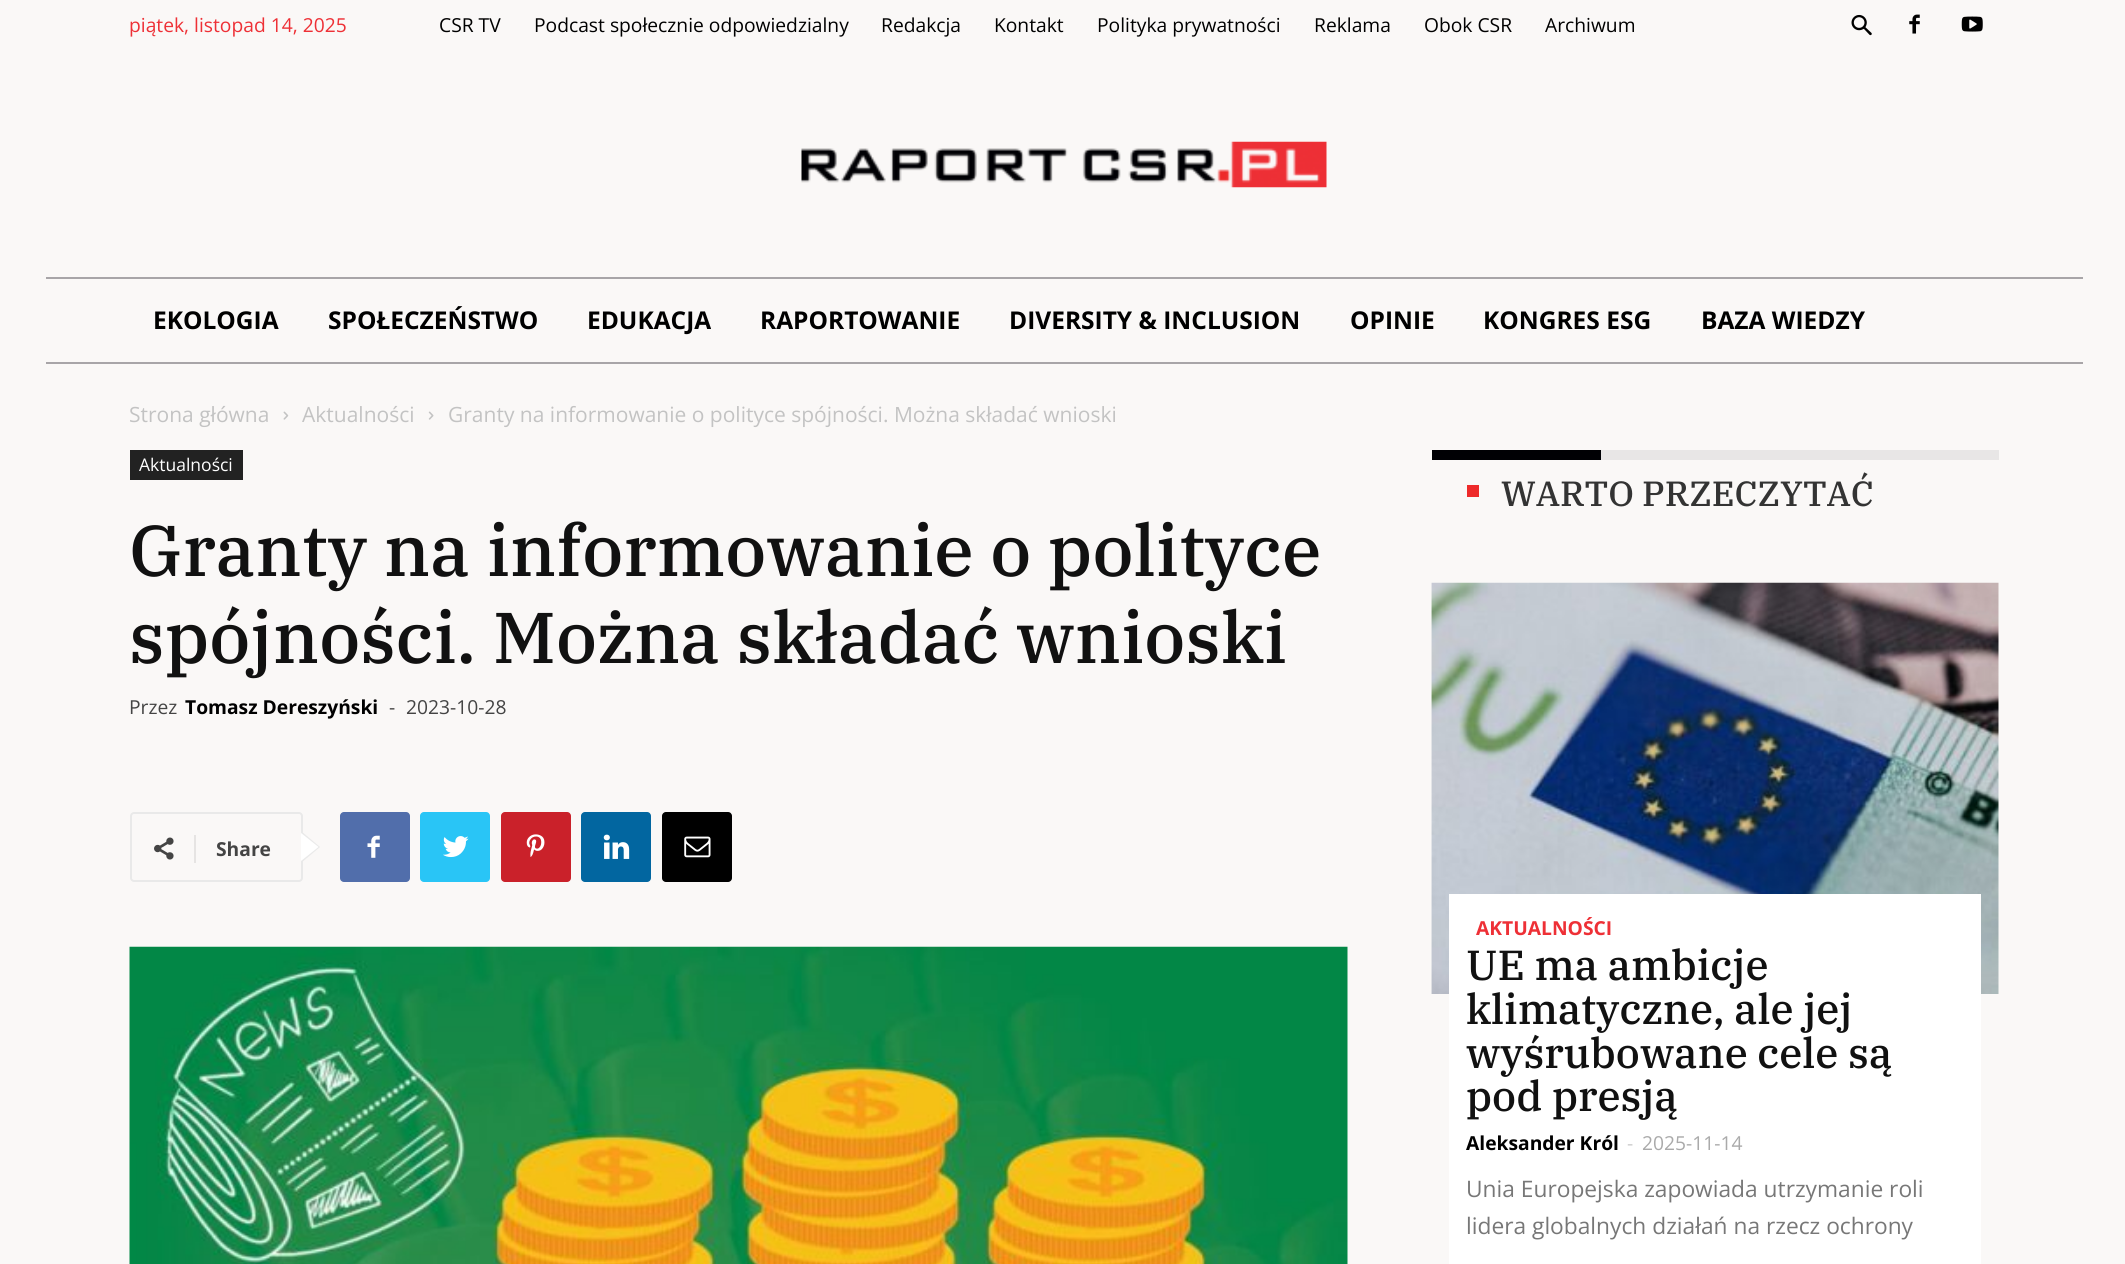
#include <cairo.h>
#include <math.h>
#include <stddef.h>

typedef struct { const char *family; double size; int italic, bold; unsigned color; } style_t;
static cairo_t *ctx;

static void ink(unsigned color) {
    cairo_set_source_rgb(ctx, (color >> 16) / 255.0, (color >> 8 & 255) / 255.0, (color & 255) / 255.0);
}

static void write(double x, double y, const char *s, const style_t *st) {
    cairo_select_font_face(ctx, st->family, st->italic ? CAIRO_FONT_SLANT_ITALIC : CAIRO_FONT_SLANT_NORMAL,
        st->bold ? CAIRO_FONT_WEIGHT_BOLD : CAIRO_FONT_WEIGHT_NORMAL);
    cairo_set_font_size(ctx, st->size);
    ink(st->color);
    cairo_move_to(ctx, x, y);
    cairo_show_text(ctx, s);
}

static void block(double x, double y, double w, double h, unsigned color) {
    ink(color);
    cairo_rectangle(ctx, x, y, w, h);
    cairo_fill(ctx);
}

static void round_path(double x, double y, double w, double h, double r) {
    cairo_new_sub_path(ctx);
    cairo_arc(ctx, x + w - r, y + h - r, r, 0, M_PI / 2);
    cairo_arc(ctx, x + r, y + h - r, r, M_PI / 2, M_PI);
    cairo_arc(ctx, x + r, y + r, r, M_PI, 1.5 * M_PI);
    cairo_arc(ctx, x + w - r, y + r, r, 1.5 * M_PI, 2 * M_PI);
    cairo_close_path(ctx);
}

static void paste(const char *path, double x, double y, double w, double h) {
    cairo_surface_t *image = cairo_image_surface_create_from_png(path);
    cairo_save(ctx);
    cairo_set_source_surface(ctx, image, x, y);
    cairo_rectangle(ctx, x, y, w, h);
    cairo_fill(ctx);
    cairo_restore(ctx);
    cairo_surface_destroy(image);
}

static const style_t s1 = {"Open Sans", 19.25, 0, 0, 0xee3036};
static const style_t s2 = {"Open Sans", 19.25, 0, 0, 0x000000};
static const style_t s3 = {"Open Sans", 24.5, 0, 1, 0x000000};
static const style_t s4 = {"Open Sans", 21, 0, 0, 0xc3c3c3};
static const style_t s5 = {"Open Sans", 17.5, 0, 0, 0xffffff};
static const style_t s6 = {"IBM Plex Serif Medium", 71.75, 0, 0, 0x111111};
static const style_t s7 = {"Open Sans", 19.25, 0, 0, 0x444444};
static const style_t s8 = {"Open Sans", 19.25, 0, 1, 0x000000};
static const style_t s9 = {"Open Sans", 19.25, 0, 1, 0x444444};
static const style_t s10 = {"IBM Plex Serif Medium", 35, 0, 0, 0x333333};
static const style_t s11 = {"Open Sans", 19.25, 0, 1, 0xee3036};
static const style_t s12 = {"IBM Plex Serif Medium", 42, 0, 0, 0x111111};
static const style_t s13 = {"Open Sans", 19.25, 0, 0, 0xcccccc};
static const style_t s14 = {"Open Sans", 19.25, 0, 0, 0xaaaaaa};
static const style_t s15 = {"Open Sans", 22.75, 0, 0, 0x777777};

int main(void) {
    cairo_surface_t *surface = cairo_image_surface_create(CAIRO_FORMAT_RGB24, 2125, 1264);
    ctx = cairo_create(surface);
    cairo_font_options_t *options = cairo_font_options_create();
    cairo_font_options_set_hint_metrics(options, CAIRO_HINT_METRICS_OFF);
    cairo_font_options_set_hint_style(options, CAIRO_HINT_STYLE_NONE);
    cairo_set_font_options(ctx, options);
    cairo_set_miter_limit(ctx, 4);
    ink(0xfaf8f7);
    cairo_paint(ctx);
    write(129, 32, "piątek, listopad 14, 2025", &s1);
    write(439, 32, "CSR TV", &s2);
    write(534, 32, "Podcast społecznie odpowiedzialny", &s2);
    write(881, 32, "Redakcja", &s2);
    write(994, 32, "Kontakt", &s2);
    write(1097, 32, "Polityka prywatności", &s2);
    write(1314, 32, "Reklama", &s2);
    write(1424, 32, "Obok CSR", &s2);
    write(1545, 32, "Archiwum", &s2);
    paste("pic1.png", 1851, 14, 21, 22);
    paste("pic2.png", 1909, 14, 11, 20);
    paste("pic3.png", 1961, 16, 22, 16);
    paste("pic4.png", 801, 141, 526, 47);
    block(46, 277, 2037, 2, 0xa8a5a8);
    block(46, 362, 2037, 2, 0xa8a5a8);
    write(153, 329, "EKOLOGIA", &s3);
    write(328, 329, "SPOŁECZEŃSTWO", &s3);
    write(587, 329, "EDUKACJA", &s3);
    write(760, 329, "RAPORTOWANIE", &s3);
    write(1009, 329, "DIVERSITY & INCLUSION", &s3);
    write(1350, 329, "OPINIE", &s3);
    write(1483, 329, "KONGRES ESG", &s3);
    write(1701, 329, "BAZA WIEDZY", &s3);
    write(129, 422, "Strona główna", &s4);
    paste("pic5.png", 283, 411, 6, 9);
    write(302, 422, "Aktualności", &s4);
    paste("pic6.png", 428, 411, 6, 9);
    write(448, 422, "Granty na informowanie o polityce spójności. Można składać wnioski", &s4);
    block(130, 450, 113, 30, 0x222222);
    write(139, 471, "Aktualności", &s5);
    write(129, 576, "Granty na informowanie o polityce", &s6);
    write(129, 663, "spójności. Można składać wnioski", &s6);
    write(129, 714, "Przez", &s7);
    write(185, 714, "Tomasz Dereszyński", &s8);
    write(389, 714, "-", &s7);
    write(406, 714, "2023-10-28", &s7);
    round_path(131, 813, 171, 68, 3);
    ink(0xe9e9e9);
    cairo_stroke(ctx);
    cairo_new_path(ctx);
    cairo_move_to(ctx, 301, 863);
    cairo_line_to(ctx, 301, 831);
    cairo_line_to(ctx, 320, 847);
    cairo_close_path(ctx);
    cairo_fill(ctx);
    paste("pic7.png", 154, 837, 20, 23);
    block(194, 835, 2, 28, 0xe6e4e3);
    write(216, 856, "Share", &s9);
    ink(0xffffff);
    cairo_new_path(ctx);
    cairo_move_to(ctx, 301, 861);
    cairo_line_to(ctx, 301, 833);
    cairo_line_to(ctx, 318.5, 847);
    cairo_close_path(ctx);
    cairo_fill(ctx);
    ink(0x516eab);
    round_path(340, 812, 70, 70, 4);
    cairo_fill(ctx);
    paste("pic8.png", 367, 835, 13, 23);
    ink(0x29c5f6);
    round_path(420, 812, 70, 70, 4);
    cairo_fill(ctx);
    paste("pic9.png", 443, 836, 26, 22);
    ink(0xca212a);
    round_path(501, 812, 70, 70, 4);
    cairo_fill(ctx);
    paste("pic10.png", 526, 834, 19, 23);
    ink(0x0266a0);
    round_path(581, 812, 70, 70, 4);
    cairo_fill(ctx);
    paste("pic11.png", 603, 834, 27, 25);
    ink(0x000000);
    round_path(662, 812, 70, 70, 4);
    cairo_fill(ctx);
    paste("pic12.png", 684, 836, 27, 22);
    paste("pic13.png", 129, 946, 1219, 318);
    block(1467, 485, 12, 12, 0xee2a2a);
    block(1432, 450, 169, 10, 0x000004);
    block(1601, 450, 398, 10, 0xe8e6e6);
    write(1501, 506, "WARTO PRZECZYTAĆ", &s10);
    paste("pic14.png", 1431, 582, 568, 412);
    block(1449, 894, 532, 370, 0xffffff);
    write(1476, 935, "AKTUALNOŚCI", &s11);
    write(1466, 980, "UE ma ambicje", &s12);
    write(1466, 1024, "klimatyczne, ale jej", &s12);
    write(1466, 1068, "wyśrubowane cele są", &s12);
    write(1466, 1111, "pod presją", &s12);
    write(1466, 1150, "Aleksander Król", &s8);
    write(1627, 1150, "-", &s13);
    write(1642, 1150, "2025-11-14", &s14);
    write(1466, 1197, "Unia Europejska zapowiada utrzymanie roli", &s15);
    write(1466, 1234, "lidera globalnych działań na rzecz ochrony", &s15);
    cairo_surface_write_to_png(surface, "screenshot.png");
    cairo_font_options_destroy(options);
    cairo_destroy(ctx);
    cairo_surface_destroy(surface);
    return 0;
}
